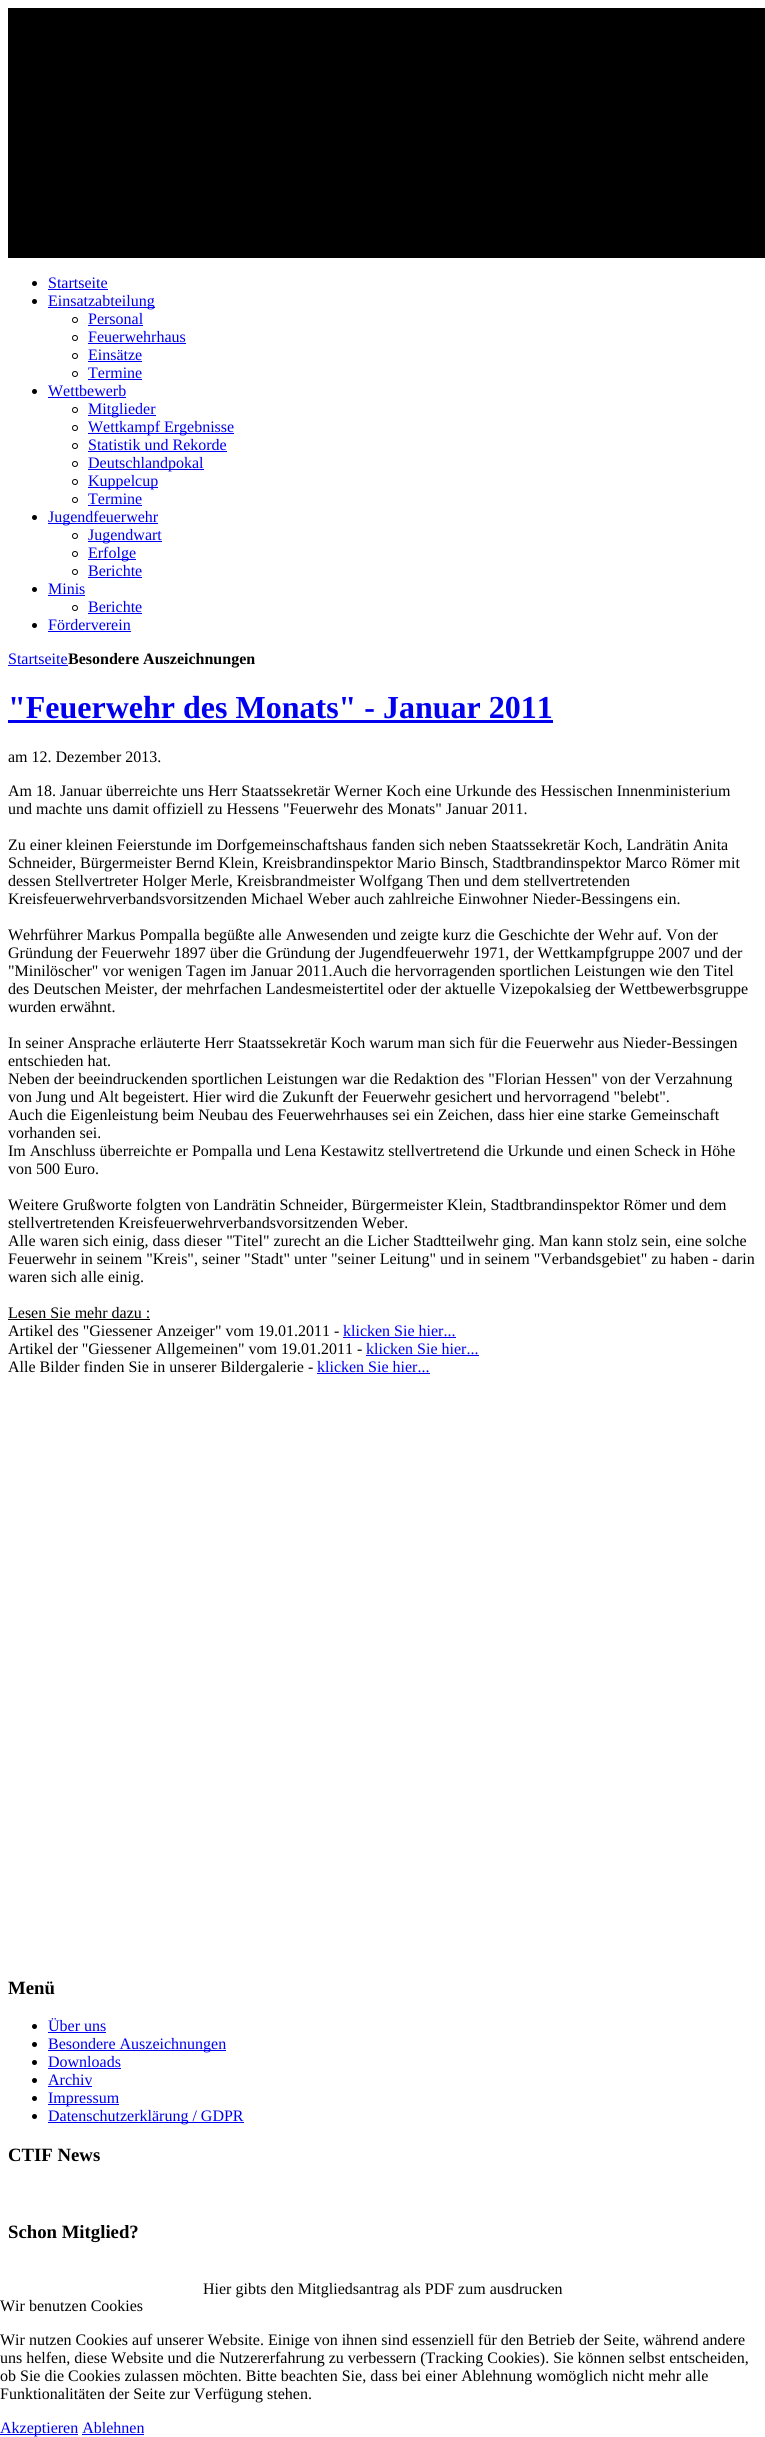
#include <cairo.h>
#include <math.h>
#include <stddef.h>

typedef struct { const char *family; double size; int italic, bold; unsigned color; } style_t;
static cairo_t *ctx;

static void ink(unsigned color) {
    cairo_set_source_rgb(ctx, (color >> 16) / 255.0, (color >> 8 & 255) / 255.0, (color & 255) / 255.0);
}

static void write(double x, double y, const char *s, const style_t *st) {
    cairo_select_font_face(ctx, st->family, st->italic ? CAIRO_FONT_SLANT_ITALIC : CAIRO_FONT_SLANT_NORMAL,
        st->bold ? CAIRO_FONT_WEIGHT_BOLD : CAIRO_FONT_WEIGHT_NORMAL);
    cairo_set_font_size(ctx, st->size);
    ink(st->color);
    cairo_move_to(ctx, x, y);
    cairo_show_text(ctx, s);
}

static void block(double x, double y, double w, double h, unsigned color) {
    ink(color);
    cairo_rectangle(ctx, x, y, w, h);
    cairo_fill(ctx);
}

static const style_t s1 = {"Liberation Serif", 16, 0, 0, 0x0000ee};
static const style_t s2 = {"Liberation Serif", 16, 0, 1, 0x000000};
static const style_t s3 = {"Liberation Serif", 32, 0, 1, 0x0000ee};
static const style_t s4 = {"Liberation Serif", 16, 0, 0, 0x000000};
static const style_t s5 = {"Liberation Serif", 18.75, 0, 1, 0x000000};

int main(void) {
    cairo_surface_t *surface = cairo_image_surface_create(CAIRO_FORMAT_RGB24, 765, 2437);
    ctx = cairo_create(surface);
    cairo_font_options_t *options = cairo_font_options_create();
    cairo_font_options_set_hint_metrics(options, CAIRO_HINT_METRICS_OFF);
    cairo_font_options_set_hint_style(options, CAIRO_HINT_STYLE_NONE);
    cairo_set_font_options(ctx, options);
    cairo_set_miter_limit(ctx, 4);
    ink(0xffffff);
    cairo_paint(ctx);
    block(8, 8, 757, 250, 0x000000);
    cairo_arc(ctx, 34.5, 283.5, 2.5, 0, 2 * M_PI);
    cairo_fill(ctx);
    write(48, 288, "Startseite", &s1);
    block(48, 289, 60, 1, 0x0000ee);
    ink(0x000000);
    cairo_new_path(ctx);
    cairo_arc(ctx, 34.5, 301.5, 2.5, 0, 2 * M_PI);
    cairo_fill(ctx);
    block(48, 307, 107, 1, 0x0000ee);
    write(48, 306, "Einsatzabteilung", &s1);
    cairo_new_path(ctx);
    cairo_arc(ctx, 75, 320, 2.5, 0, 2 * M_PI);
    ink(0x000000);
    cairo_set_line_width(ctx, 1);
    cairo_stroke(ctx);
    write(88, 324, "Personal", &s1);
    block(88, 325, 55, 1, 0x0000ee);
    cairo_new_path(ctx);
    cairo_arc(ctx, 75, 338, 2.5, 0, 2 * M_PI);
    ink(0x000000);
    cairo_stroke(ctx);
    write(88, 342, "Feuerwehrhaus", &s1);
    block(88, 343, 98, 1, 0x0000ee);
    cairo_new_path(ctx);
    cairo_arc(ctx, 75, 356, 2.5, 0, 2 * M_PI);
    ink(0x000000);
    cairo_stroke(ctx);
    write(88, 360, "Einsätze", &s1);
    block(88, 361, 54, 1, 0x0000ee);
    cairo_new_path(ctx);
    cairo_arc(ctx, 75, 374, 2.5, 0, 2 * M_PI);
    ink(0x000000);
    cairo_stroke(ctx);
    write(88, 378, "Termine", &s1);
    block(88, 379, 54, 1, 0x0000ee);
    ink(0x000000);
    cairo_new_path(ctx);
    cairo_arc(ctx, 34.5, 391.5, 2.5, 0, 2 * M_PI);
    cairo_fill(ctx);
    write(48, 396, "Wettbewerb", &s1);
    block(48, 397, 78, 1, 0x0000ee);
    cairo_new_path(ctx);
    cairo_arc(ctx, 75, 410, 2.5, 0, 2 * M_PI);
    ink(0x000000);
    cairo_stroke(ctx);
    block(88, 415, 68, 1, 0x0000ee);
    write(88, 414, "Mitglieder", &s1);
    cairo_new_path(ctx);
    cairo_arc(ctx, 75, 428, 2.5, 0, 2 * M_PI);
    ink(0x000000);
    cairo_stroke(ctx);
    block(88, 433, 146, 1, 0x0000ee);
    write(88, 432, "Wettkampf Ergebnisse", &s1);
    cairo_new_path(ctx);
    cairo_arc(ctx, 75, 446, 2.5, 0, 2 * M_PI);
    ink(0x000000);
    cairo_stroke(ctx);
    write(88, 450, "Statistik und Rekorde", &s1);
    block(88, 451, 139, 1, 0x0000ee);
    cairo_new_path(ctx);
    cairo_arc(ctx, 75, 464, 2.5, 0, 2 * M_PI);
    ink(0x000000);
    cairo_stroke(ctx);
    block(88, 469, 116, 1, 0x0000ee);
    write(88, 468, "Deutschlandpokal", &s1);
    cairo_new_path(ctx);
    cairo_arc(ctx, 75, 482, 2.5, 0, 2 * M_PI);
    ink(0x000000);
    cairo_stroke(ctx);
    block(88, 487, 70, 1, 0x0000ee);
    write(88, 486, "Kuppelcup", &s1);
    cairo_new_path(ctx);
    cairo_arc(ctx, 75, 500, 2.5, 0, 2 * M_PI);
    ink(0x000000);
    cairo_stroke(ctx);
    write(88, 504, "Termine", &s1);
    block(88, 505, 54, 1, 0x0000ee);
    ink(0x000000);
    cairo_new_path(ctx);
    cairo_arc(ctx, 34.5, 517.5, 2.5, 0, 2 * M_PI);
    cairo_fill(ctx);
    block(48, 523, 110, 1, 0x0000ee);
    write(48, 522, "Jugendfeuerwehr", &s1);
    cairo_new_path(ctx);
    cairo_arc(ctx, 75, 536, 2.5, 0, 2 * M_PI);
    ink(0x000000);
    cairo_stroke(ctx);
    block(88, 541, 74, 1, 0x0000ee);
    write(88, 540, "Jugendwart", &s1);
    cairo_new_path(ctx);
    cairo_arc(ctx, 75, 554, 2.5, 0, 2 * M_PI);
    ink(0x000000);
    cairo_stroke(ctx);
    block(88, 559, 48, 1, 0x0000ee);
    write(88, 558, "Erfolge", &s1);
    cairo_new_path(ctx);
    cairo_arc(ctx, 75, 572, 2.5, 0, 2 * M_PI);
    ink(0x000000);
    cairo_stroke(ctx);
    write(88, 576, "Berichte", &s1);
    block(88, 577, 54, 1, 0x0000ee);
    ink(0x000000);
    cairo_new_path(ctx);
    cairo_arc(ctx, 34.5, 589.5, 2.5, 0, 2 * M_PI);
    cairo_fill(ctx);
    write(48, 594, "Minis", &s1);
    block(48, 595, 37, 1, 0x0000ee);
    cairo_new_path(ctx);
    cairo_arc(ctx, 75, 608, 2.5, 0, 2 * M_PI);
    ink(0x000000);
    cairo_stroke(ctx);
    write(88, 612, "Berichte", &s1);
    block(88, 613, 54, 1, 0x0000ee);
    ink(0x000000);
    cairo_new_path(ctx);
    cairo_arc(ctx, 34.5, 625.5, 2.5, 0, 2 * M_PI);
    cairo_fill(ctx);
    write(48, 630, "Förderverein", &s1);
    block(48, 631, 83, 1, 0x0000ee);
    write(8, 664, "Startseite", &s1);
    block(8, 665, 60, 1, 0x0000ee);
    write(68, 664, "Besondere Auszeichnungen", &s2);
    write(8, 718, "\"Feuerwehr des Monats\" - Januar 2011", &s3);
    block(8, 720, 545, 3, 0x0000ee);
    write(8, 762, "am 12. Dezember 2013.", &s4);
    write(8, 796, "Am 18. Januar überreichte uns Herr Staatssekretär Werner Koch eine Urkunde des Hessischen Innenministerium", &s4);
    write(8, 814, "und machte uns damit offiziell zu Hessens \"Feuerwehr des Monats\" Januar 2011.", &s4);
    write(8, 850, "Zu einer kleinen Feierstunde im Dorfgemeinschaftshaus fanden sich neben Staatssekretär Koch, Landrätin Anita", &s4);
    write(8, 868, "Schneider, Bürgermeister Bernd Klein, Kreisbrandinspektor Mario Binsch, Stadtbrandinspektor Marco Römer mit", &s4);
    write(8, 886, "dessen Stellvertreter Holger Merle, Kreisbrandmeister Wolfgang Then und dem stellvertretenden", &s4);
    write(8, 904, "Kreisfeuerwehrverbandsvorsitzenden Michael Weber auch zahlreiche Einwohner Nieder-Bessingens ein.", &s4);
    write(8, 940, "Wehrführer Markus Pompalla begüßte alle Anwesenden und zeigte kurz die Geschichte der Wehr auf. Von der", &s4);
    write(8, 958, "Gründung der Feuerwehr 1897 über die Gründung der Jugendfeuerwehr 1971, der Wettkampfgruppe 2007 und der", &s4);
    write(8, 976, "\"Minilöscher\" vor wenigen Tagen im Januar 2011.Auch die hervorragenden sportlichen Leistungen wie den Titel", &s4);
    write(8, 994, "des Deutschen Meister, der mehrfachen Landesmeistertitel oder der aktuelle Vizepokalsieg der Wettbewerbsgruppe", &s4);
    write(8, 1012, "wurden erwähnt.", &s4);
    write(8, 1048, "In seiner Ansprache erläuterte Herr Staatssekretär Koch warum man sich für die Feuerwehr aus Nieder-Bessingen", &s4);
    write(8, 1066, "entschieden hat.", &s4);
    write(8, 1084, "Neben der beeindruckenden sportlichen Leistungen war die Redaktion des \"Florian Hessen\" von der Verzahnung", &s4);
    write(8, 1102, "von Jung und Alt begeistert. Hier wird die Zukunft der Feuerwehr gesichert und hervorragend \"belebt\".", &s4);
    write(8, 1120, "Auch die Eigenleistung beim Neubau des Feuerwehrhauses sei ein Zeichen, dass hier eine starke Gemeinschaft", &s4);
    write(8, 1138, "vorhanden sei.", &s4);
    write(8, 1156, "Im Anschluss überreichte er Pompalla und Lena Kestawitz stellvertretend die Urkunde und einen Scheck in Höhe", &s4);
    write(8, 1174, "von 500 Euro.", &s4);
    write(8, 1210, "Weitere Grußworte folgten von Landrätin Schneider, Bürgermeister Klein, Stadtbrandinspektor Römer und dem", &s4);
    write(8, 1228, "stellvertretenden Kreisfeuerwehrverbandsvorsitzenden Weber.", &s4);
    write(8, 1246, "Alle waren sich einig, dass dieser \"Titel\" zurecht an die Licher Stadtteilwehr ging. Man kann stolz sein, eine solche", &s4);
    write(8, 1264, "Feuerwehr in seinem \"Kreis\", seiner \"Stadt\" unter \"seiner Leitung\" und in seinem \"Verbandsgebiet\" zu haben - darin", &s4);
    write(8, 1282, "waren sich alle einig.", &s4);
    write(8, 1318, "Lesen Sie mehr dazu :", &s4);
    block(8, 1319, 142, 1, 0x000000);
    write(8, 1336, "Artikel des \"Giessener Anzeiger\" vom 19.01.2011 -", &s4);
    write(343, 1336, "klicken Sie hier...", &s1);
    block(343, 1337, 113, 1, 0x0000ee);
    write(8, 1354, "Artikel der \"Giessener Allgemeinen\" vom 19.01.2011 -", &s4);
    write(366, 1354, "klicken Sie hier...", &s1);
    block(366, 1355, 113, 1, 0x0000ee);
    write(8, 1372, "Alle Bilder finden Sie in unserer Bildergalerie -", &s4);
    write(317, 1372, "klicken Sie hier...", &s1);
    block(317, 1373, 113, 1, 0x0000ee);
    write(8, 1994, "Menü", &s5);
    cairo_new_path(ctx);
    cairo_arc(ctx, 34.5, 2026.5, 2.5, 0, 2 * M_PI);
    cairo_fill(ctx);
    write(48, 2031, "Über uns", &s1);
    block(48, 2032, 58, 1, 0x0000ee);
    ink(0x000000);
    cairo_new_path(ctx);
    cairo_arc(ctx, 34.5, 2044.5, 2.5, 0, 2 * M_PI);
    cairo_fill(ctx);
    block(48, 2050, 178, 1, 0x0000ee);
    write(48, 2049, "Besondere Auszeichnungen", &s1);
    ink(0x000000);
    cairo_new_path(ctx);
    cairo_arc(ctx, 34.5, 2062.5, 2.5, 0, 2 * M_PI);
    cairo_fill(ctx);
    write(48, 2067, "Downloads", &s1);
    block(48, 2068, 73, 1, 0x0000ee);
    ink(0x000000);
    cairo_new_path(ctx);
    cairo_arc(ctx, 34.5, 2080.5, 2.5, 0, 2 * M_PI);
    cairo_fill(ctx);
    write(48, 2085, "Archiv", &s1);
    block(48, 2086, 44, 1, 0x0000ee);
    ink(0x000000);
    cairo_new_path(ctx);
    cairo_arc(ctx, 34.5, 2098.5, 2.5, 0, 2 * M_PI);
    cairo_fill(ctx);
    block(48, 2104, 71, 1, 0x0000ee);
    write(48, 2103, "Impressum", &s1);
    ink(0x000000);
    cairo_new_path(ctx);
    cairo_arc(ctx, 34.5, 2116.5, 2.5, 0, 2 * M_PI);
    cairo_fill(ctx);
    block(48, 2122, 196, 1, 0x0000ee);
    write(48, 2121, "Datenschutzerklärung / GDPR", &s1);
    write(8, 2161, "CTIF News", &s5);
    write(8, 2238, "Schon Mitglied?", &s5);
    write(203, 2294, "Hier gibts den Mitgliedsantrag als PDF zum ausdrucken", &s4);
    write(0, 2311, "Wir benutzen Cookies", &s4);
    write(0, 2345, "Wir nutzen Cookies auf unserer Website. Einige von ihnen sind essenziell für den Betrieb der Seite, während andere", &s4);
    write(0, 2363, "uns helfen, diese Website und die Nutzererfahrung zu verbessern (Tracking Cookies). Sie können selbst entscheiden,", &s4);
    write(0, 2381, "ob Sie die Cookies zulassen möchten. Bitte beachten Sie, dass bei einer Ablehnung womöglich nicht mehr alle", &s4);
    write(0, 2399, "Funktionalitäten der Seite zur Verfügung stehen.", &s4);
    block(0, 2434, 78, 1, 0x0000ee);
    write(0, 2433, "Akzeptieren Ablehnen", &s1);
    block(82, 2434, 62, 1, 0x0000ee);
    cairo_surface_write_to_png(surface, "screenshot.png");
    cairo_font_options_destroy(options);
    cairo_destroy(ctx);
    cairo_surface_destroy(surface);
    return 0;
}
